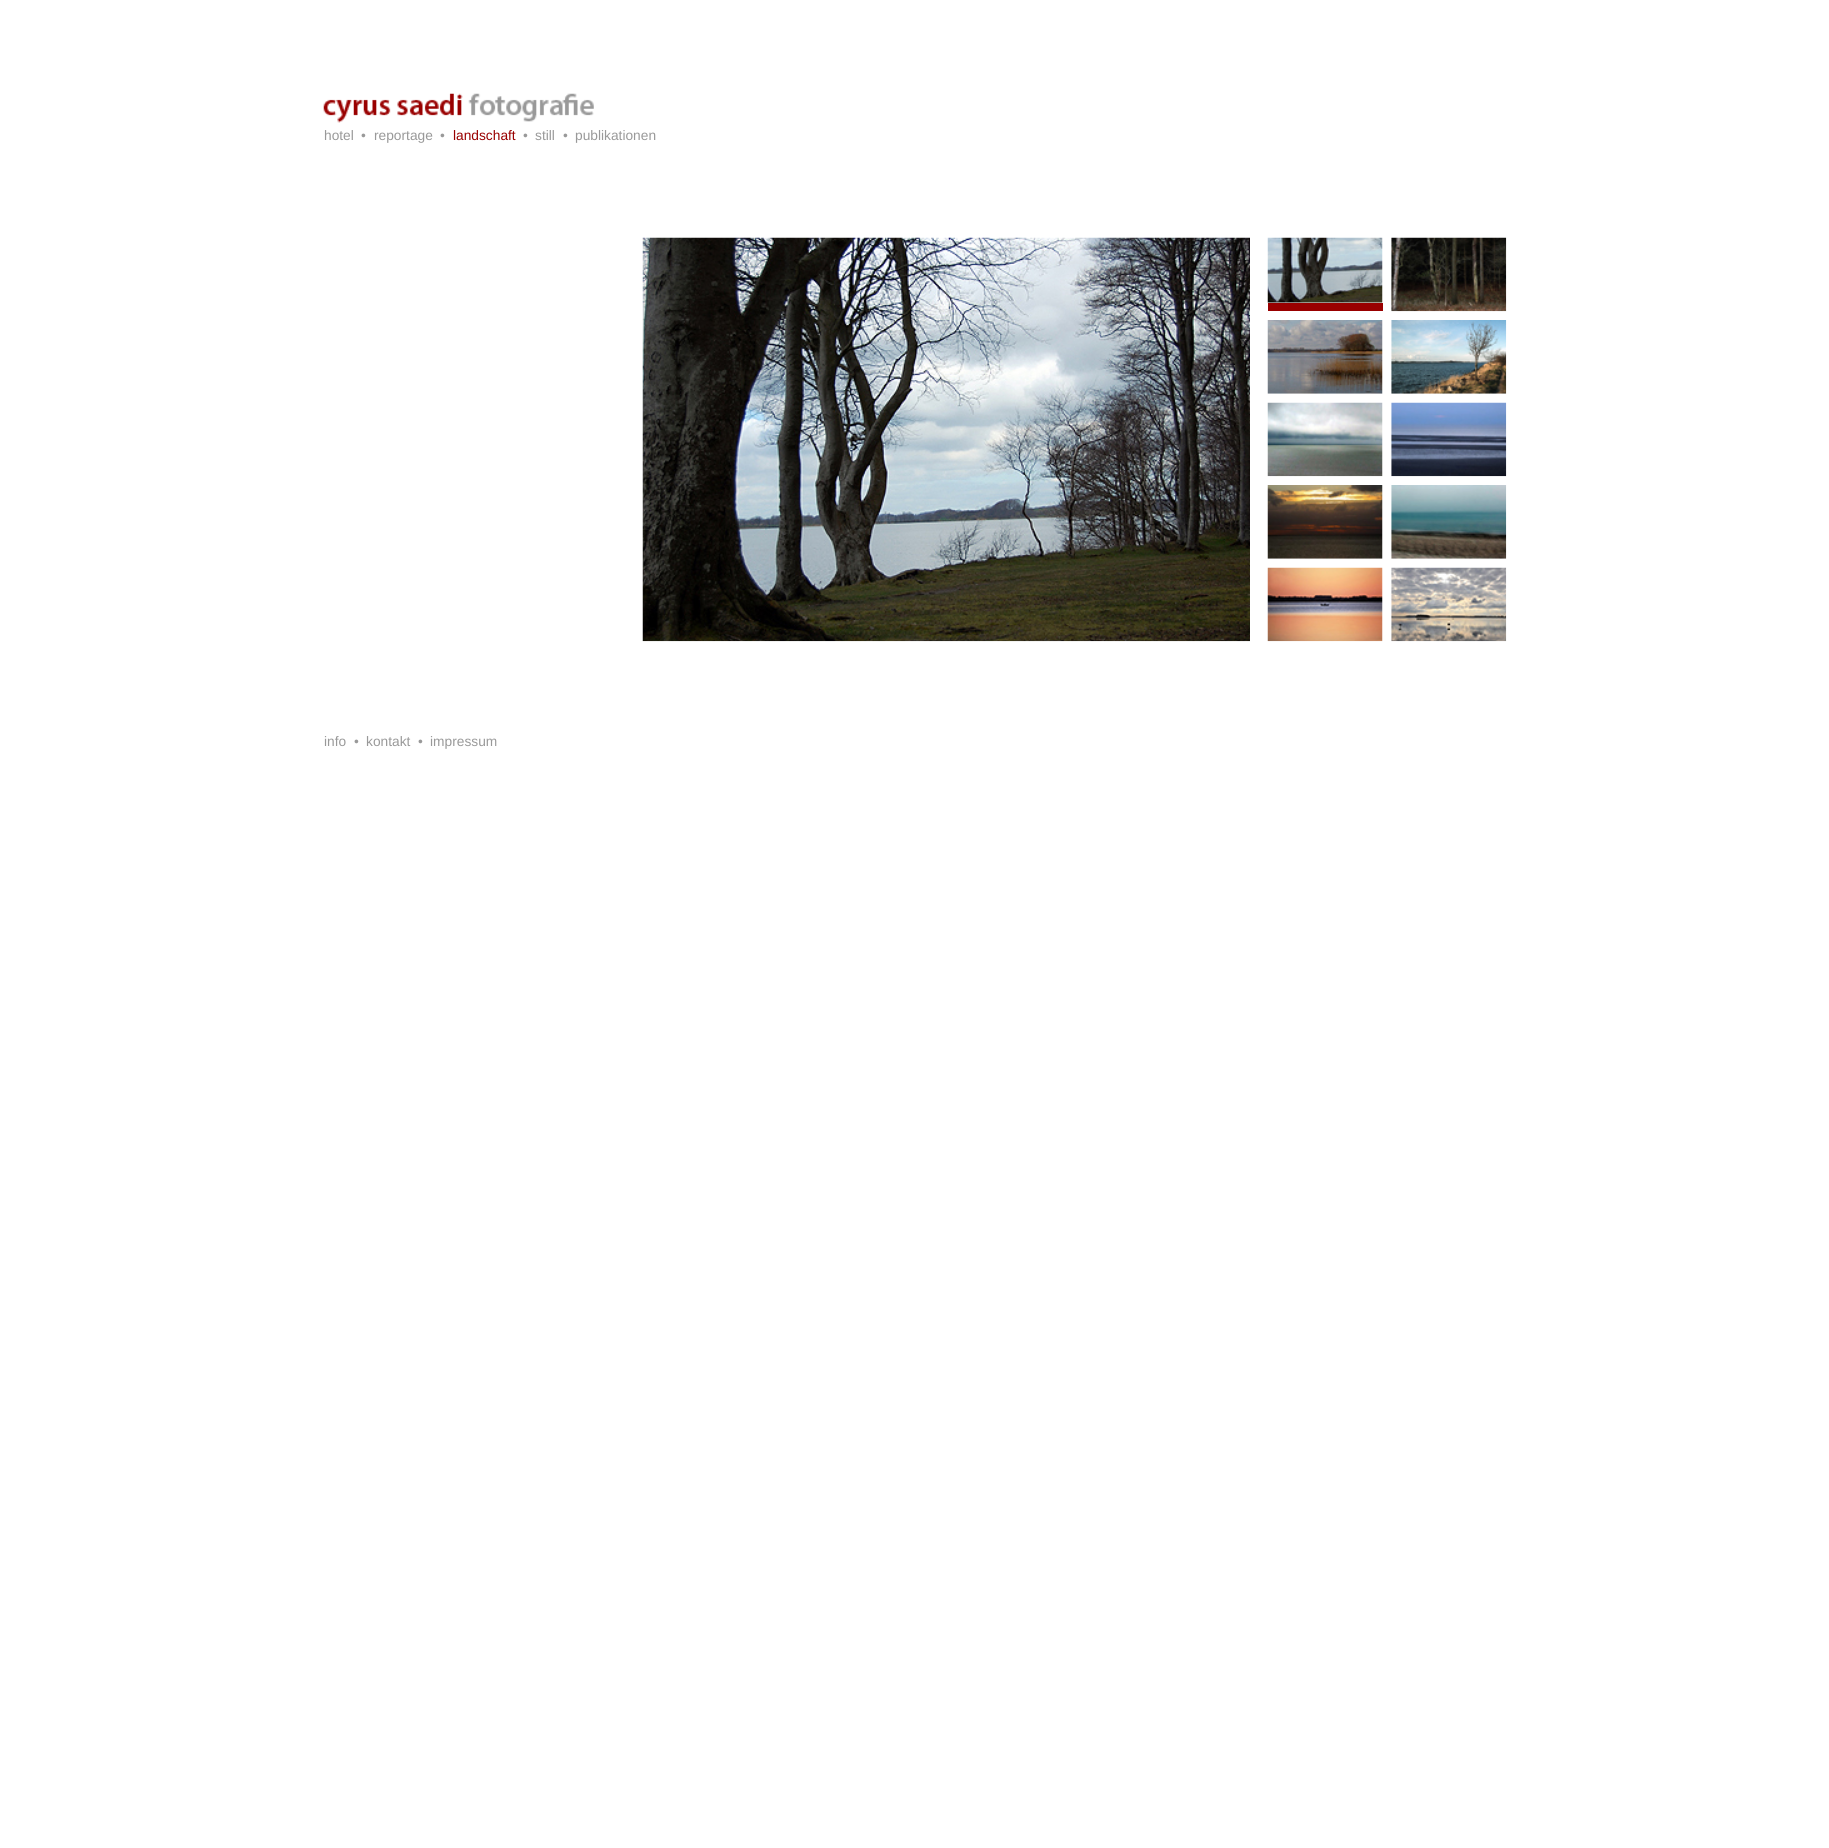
#include <cairo.h>
#include <math.h>
#include <stddef.h>

typedef struct { const char *family; double size; int italic, bold; unsigned color; } style_t;
static cairo_t *ctx;

static void ink(unsigned color) {
    cairo_set_source_rgb(ctx, (color >> 16) / 255.0, (color >> 8 & 255) / 255.0, (color & 255) / 255.0);
}

static void write(double x, double y, const char *s, const style_t *st) {
    cairo_select_font_face(ctx, st->family, st->italic ? CAIRO_FONT_SLANT_ITALIC : CAIRO_FONT_SLANT_NORMAL,
        st->bold ? CAIRO_FONT_WEIGHT_BOLD : CAIRO_FONT_WEIGHT_NORMAL);
    cairo_set_font_size(ctx, st->size);
    ink(st->color);
    cairo_move_to(ctx, x, y);
    cairo_show_text(ctx, s);
}

static void block(double x, double y, double w, double h, unsigned color) {
    ink(color);
    cairo_rectangle(ctx, x, y, w, h);
    cairo_fill(ctx);
}

static void paste(const char *path, double x, double y, double w, double h) {
    cairo_surface_t *image = cairo_image_surface_create_from_png(path);
    cairo_save(ctx);
    cairo_set_source_surface(ctx, image, x, y);
    cairo_rectangle(ctx, x, y, w, h);
    cairo_fill(ctx);
    cairo_restore(ctx);
    cairo_surface_destroy(image);
}

static const style_t s1 = {"Liberation Sans", 13.75, 0, 0, 0x999999};
static const style_t s2 = {"Liberation Sans", 13.75, 0, 0, 0x990000};

int main(void) {
    cairo_surface_t *surface = cairo_image_surface_create(CAIRO_FORMAT_RGB24, 1829, 1848);
    ctx = cairo_create(surface);
    cairo_font_options_t *options = cairo_font_options_create();
    cairo_font_options_set_hint_metrics(options, CAIRO_HINT_METRICS_OFF);
    cairo_font_options_set_hint_style(options, CAIRO_HINT_STYLE_NONE);
    cairo_set_font_options(ctx, options);
    cairo_set_miter_limit(ctx, 4);
    ink(0xffffff);
    cairo_paint(ctx);
    paste("pic1.png", 323, 93, 271, 30);
    write(324, 140, "hotel", &s1);
    write(361, 140, "•", &s1);
    write(374, 140, "reportage", &s1);
    write(440, 140, "•", &s1);
    write(453, 140, "landschaft", &s2);
    write(523, 140, "•", &s1);
    write(535, 140, "still", &s1);
    write(563, 140, "•", &s1);
    write(575, 140, "publikationen", &s1);
    paste("pic2.png", 642, 237, 608, 405);
    block(1268, 303, 115, 8, 0x990000);
    paste("pic3.png", 1267, 237, 116, 66);
    paste("pic4.png", 1391, 237, 116, 75);
    paste("pic5.png", 1267, 320, 116, 74);
    paste("pic6.png", 1391, 320, 116, 74);
    paste("pic7.png", 1267, 402, 116, 75);
    paste("pic8.png", 1391, 402, 116, 75);
    paste("pic9.png", 1267, 485, 116, 74);
    paste("pic10.png", 1391, 485, 116, 74);
    paste("pic11.png", 1267, 567, 116, 75);
    paste("pic12.png", 1391, 567, 116, 75);
    write(324, 746, "info", &s1);
    write(354, 746, "•", &s1);
    write(366, 746, "kontakt", &s1);
    write(418, 746, "•", &s1);
    write(430, 746, "impressum", &s1);
    cairo_surface_write_to_png(surface, "screenshot.png");
    cairo_font_options_destroy(options);
    cairo_destroy(ctx);
    cairo_surface_destroy(surface);
    return 0;
}
